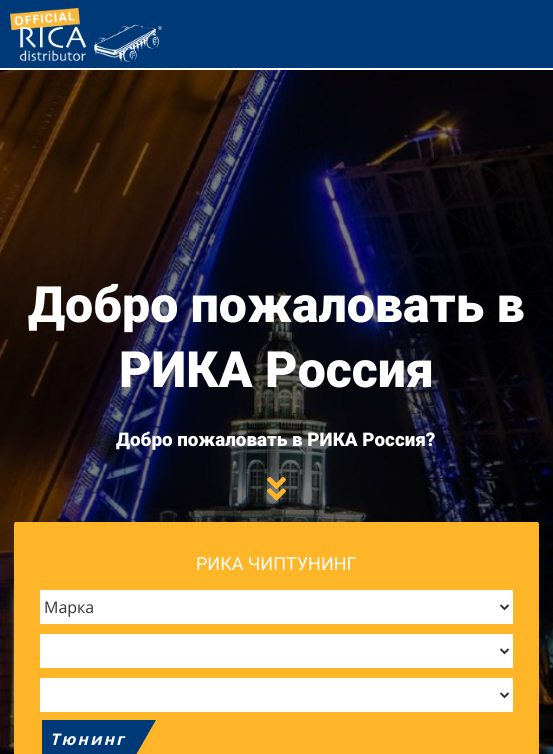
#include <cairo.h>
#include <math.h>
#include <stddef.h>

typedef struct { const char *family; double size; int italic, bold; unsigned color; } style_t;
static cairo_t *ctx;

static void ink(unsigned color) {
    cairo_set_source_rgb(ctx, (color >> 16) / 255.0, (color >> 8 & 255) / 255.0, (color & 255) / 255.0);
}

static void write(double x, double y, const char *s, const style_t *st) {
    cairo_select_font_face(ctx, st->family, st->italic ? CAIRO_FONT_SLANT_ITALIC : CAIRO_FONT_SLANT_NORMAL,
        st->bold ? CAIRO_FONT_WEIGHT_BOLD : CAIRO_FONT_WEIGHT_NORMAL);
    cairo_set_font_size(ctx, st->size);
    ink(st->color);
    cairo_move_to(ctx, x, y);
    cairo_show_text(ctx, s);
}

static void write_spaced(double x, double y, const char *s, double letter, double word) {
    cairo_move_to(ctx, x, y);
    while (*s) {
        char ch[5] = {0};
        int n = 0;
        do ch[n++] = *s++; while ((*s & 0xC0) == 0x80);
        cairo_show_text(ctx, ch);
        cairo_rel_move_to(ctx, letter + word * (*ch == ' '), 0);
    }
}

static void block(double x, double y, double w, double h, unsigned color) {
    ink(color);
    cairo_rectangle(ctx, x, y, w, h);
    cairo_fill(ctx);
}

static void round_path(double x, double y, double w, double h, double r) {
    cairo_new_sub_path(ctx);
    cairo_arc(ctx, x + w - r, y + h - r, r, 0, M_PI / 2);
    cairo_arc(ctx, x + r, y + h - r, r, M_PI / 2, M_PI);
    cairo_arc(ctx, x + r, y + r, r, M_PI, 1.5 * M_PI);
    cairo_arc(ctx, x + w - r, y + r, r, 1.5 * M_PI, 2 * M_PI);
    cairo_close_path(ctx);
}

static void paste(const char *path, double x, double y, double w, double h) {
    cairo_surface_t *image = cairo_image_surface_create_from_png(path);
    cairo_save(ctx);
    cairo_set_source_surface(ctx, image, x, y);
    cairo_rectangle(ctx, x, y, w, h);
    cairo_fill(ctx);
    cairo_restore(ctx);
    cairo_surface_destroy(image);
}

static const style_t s1 = {"Roboto Black", 50, 0, 0, 0xffffff};
static const style_t s2 = {"Roboto Black", 18.8, 0, 0, 0xffffff};
static const style_t s3 = {"Roboto", 18, 0, 0, 0xffffff};
static const style_t s4 = {"Open Sans", 16, 0, 0, 0x333333};

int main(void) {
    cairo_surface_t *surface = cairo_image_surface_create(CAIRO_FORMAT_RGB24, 553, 754);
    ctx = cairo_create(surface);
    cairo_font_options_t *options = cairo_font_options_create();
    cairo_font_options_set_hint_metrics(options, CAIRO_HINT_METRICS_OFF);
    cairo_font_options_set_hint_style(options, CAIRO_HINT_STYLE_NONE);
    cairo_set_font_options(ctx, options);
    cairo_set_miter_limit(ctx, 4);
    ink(0xffffff);
    cairo_paint(ctx);
    block(0, 0, 553, 68, 0x003978);
    paste("pic1.png", 10, 8, 152, 54);
    paste("pic2.png", 0, 70, 553, 684);
    write(28, 322, "Добро пожаловать в", &s1);
    write(119, 387, "РИКА Россия", &s1);
    write(116, 446, "Добро пожаловать в РИКА Россия?", &s2);
    paste("pic3.png", 267, 477, 19, 24);
    ink(0xffb528);
    round_path(14, 522, 525, 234, 2);
    cairo_fill(ctx);
    write(196, 570, "РИКА ЧИПТУНИНГ", &s3);
    block(40, 590, 473, 34, 0xffffff);
    cairo_new_path(ctx);
    cairo_move_to(ctx, 500.5, 605);
    cairo_line_to(ctx, 504.5, 609);
    cairo_line_to(ctx, 508.5, 605);
    ink(0x333333);
    cairo_stroke(ctx);
    write(44, 613, "Марка", &s4);
    block(40, 634, 473, 34, 0xffffff);
    cairo_new_path(ctx);
    cairo_move_to(ctx, 500.5, 649);
    cairo_line_to(ctx, 504.5, 653);
    cairo_line_to(ctx, 508.5, 649);
    ink(0x333333);
    cairo_stroke(ctx);
    block(40, 678, 473, 34, 0xffffff);
    cairo_new_path(ctx);
    cairo_move_to(ctx, 500.5, 693);
    cairo_line_to(ctx, 504.5, 697);
    cairo_line_to(ctx, 508.5, 693);
    ink(0x333333);
    cairo_stroke(ctx);
    block(42, 720, 23, 34, 0x003978);
    cairo_new_path(ctx);
    cairo_move_to(ctx, 65, 720);
    cairo_line_to(ctx, 156, 720);
    cairo_line_to(ctx, 133, 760);
    cairo_line_to(ctx, 42, 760);
    cairo_close_path(ctx);
    cairo_fill(ctx);
    cairo_select_font_face(ctx, "Open Sans", CAIRO_FONT_SLANT_ITALIC, CAIRO_FONT_WEIGHT_BOLD);
    ink(0xffffff);
    write_spaced(50, 745, "Тюнинг", 2, 0);
    cairo_surface_write_to_png(surface, "screenshot.png");
    cairo_font_options_destroy(options);
    cairo_destroy(ctx);
    cairo_surface_destroy(surface);
    return 0;
}
